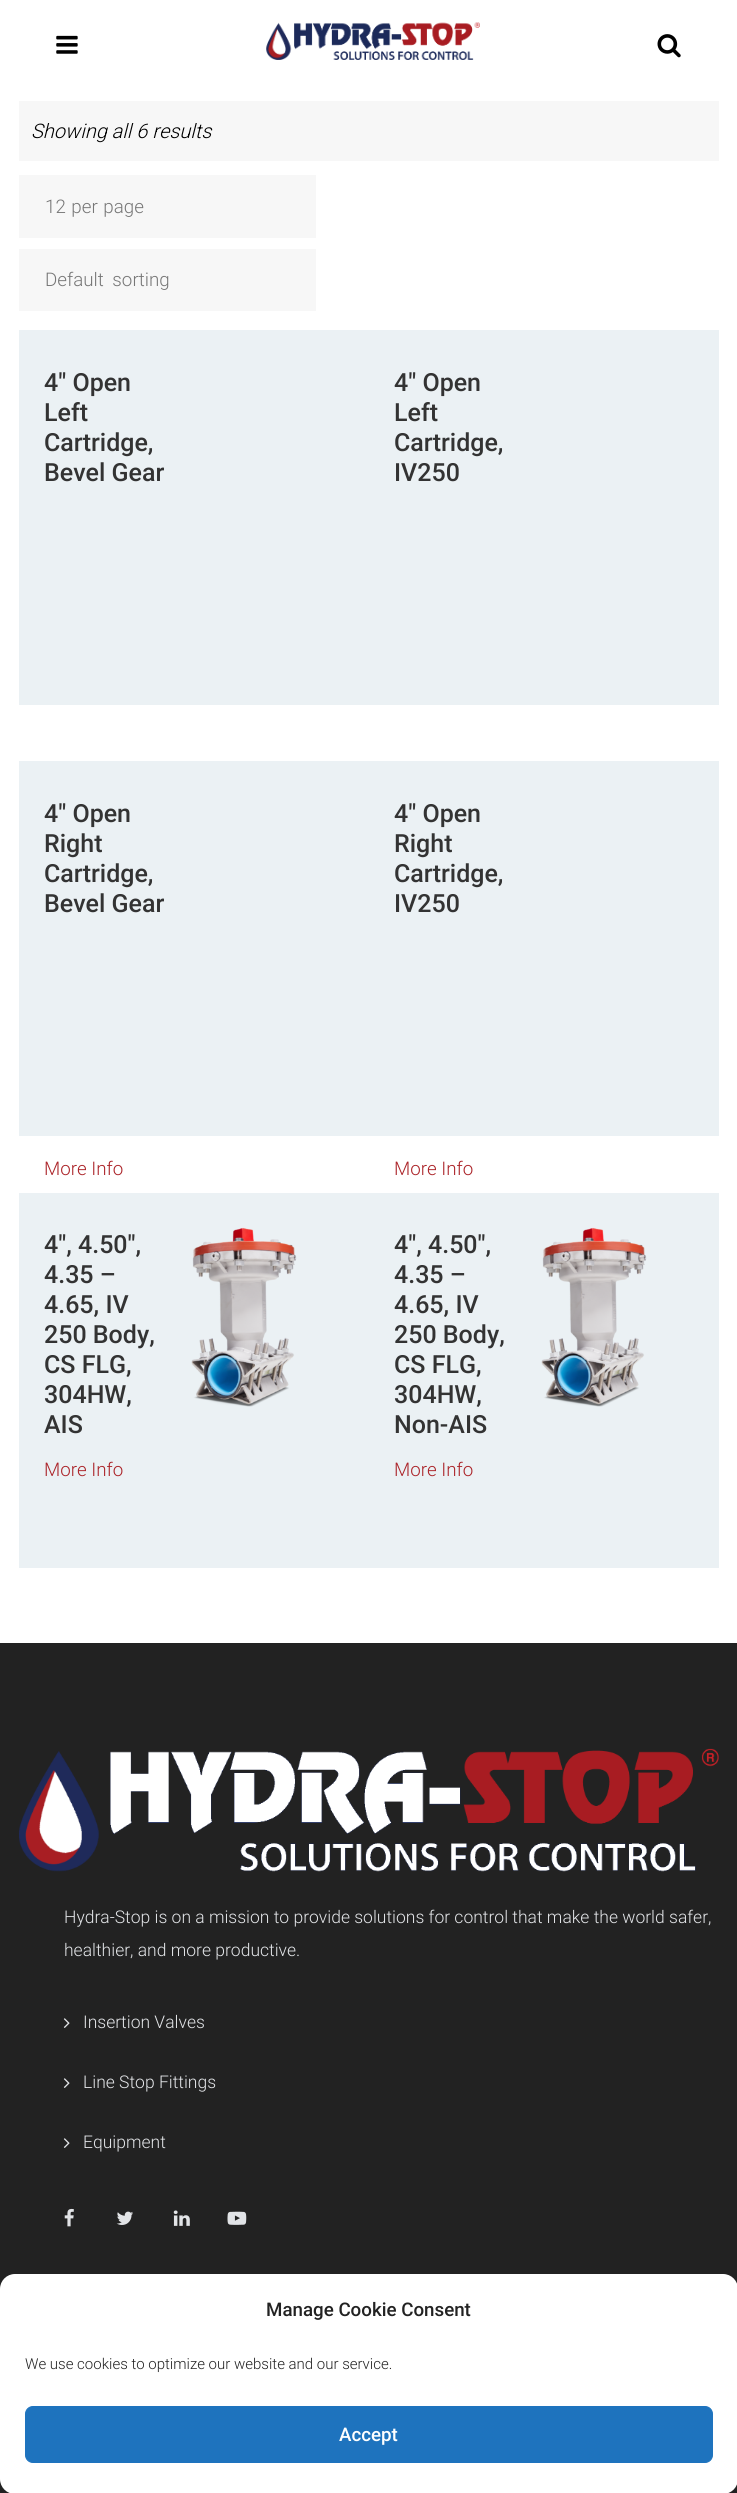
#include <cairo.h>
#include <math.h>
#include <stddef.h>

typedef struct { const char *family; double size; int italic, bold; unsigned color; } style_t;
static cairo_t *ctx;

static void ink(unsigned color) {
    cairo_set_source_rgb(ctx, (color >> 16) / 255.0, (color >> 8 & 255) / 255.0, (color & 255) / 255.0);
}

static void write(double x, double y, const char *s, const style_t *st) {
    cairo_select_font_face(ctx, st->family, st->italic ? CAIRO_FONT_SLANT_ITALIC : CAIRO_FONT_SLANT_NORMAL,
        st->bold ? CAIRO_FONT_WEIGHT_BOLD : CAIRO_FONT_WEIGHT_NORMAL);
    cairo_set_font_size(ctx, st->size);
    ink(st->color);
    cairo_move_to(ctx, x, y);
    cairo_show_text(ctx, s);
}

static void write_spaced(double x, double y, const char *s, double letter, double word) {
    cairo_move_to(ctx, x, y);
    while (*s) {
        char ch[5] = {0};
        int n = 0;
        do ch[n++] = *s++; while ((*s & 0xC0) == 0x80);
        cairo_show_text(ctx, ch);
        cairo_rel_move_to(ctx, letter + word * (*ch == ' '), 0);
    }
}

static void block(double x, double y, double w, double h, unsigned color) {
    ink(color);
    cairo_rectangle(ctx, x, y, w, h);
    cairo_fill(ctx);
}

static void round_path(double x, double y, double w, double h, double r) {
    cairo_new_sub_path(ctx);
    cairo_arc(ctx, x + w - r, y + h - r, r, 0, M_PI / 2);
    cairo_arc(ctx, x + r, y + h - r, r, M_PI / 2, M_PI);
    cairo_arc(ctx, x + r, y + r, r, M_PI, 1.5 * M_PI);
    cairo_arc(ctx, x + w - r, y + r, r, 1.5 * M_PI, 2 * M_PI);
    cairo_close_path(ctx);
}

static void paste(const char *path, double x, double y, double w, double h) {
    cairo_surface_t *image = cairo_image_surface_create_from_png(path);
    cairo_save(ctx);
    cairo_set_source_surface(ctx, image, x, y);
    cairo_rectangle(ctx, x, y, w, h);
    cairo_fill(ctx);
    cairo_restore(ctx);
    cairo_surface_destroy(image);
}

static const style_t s1 = {"Roboto Light", 20, 1, 0, 0x000000};
static const style_t s2 = {"Roboto Medium", 25, 0, 0, 0x333333};
static const style_t s3 = {"Roboto Light", 18.75, 0, 0, 0xab2328};
static const style_t s4 = {"Roboto Light", 17.5, 0, 0, 0xe2e4e7};
static const style_t s5 = {"Roboto Medium", 18.75, 0, 0, 0x222222};
static const style_t s6 = {"Roboto Light", 15, 0, 0, 0x222222};
static const style_t s7 = {"Roboto Medium", 18.75, 0, 0, 0xffffff};

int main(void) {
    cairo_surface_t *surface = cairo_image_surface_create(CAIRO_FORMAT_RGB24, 737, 2493);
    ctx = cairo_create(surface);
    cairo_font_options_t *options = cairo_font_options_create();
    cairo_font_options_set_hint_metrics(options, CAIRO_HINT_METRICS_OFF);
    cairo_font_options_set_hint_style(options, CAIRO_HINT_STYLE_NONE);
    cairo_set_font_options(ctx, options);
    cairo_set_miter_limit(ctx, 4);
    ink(0xffffff);
    cairo_paint(ctx);
    paste("pic1.png", 56, 35, 22, 19);
    paste("pic2.png", 266, 22, 214, 38);
    paste("pic3.png", 657, 34, 24, 24);
    block(19, 101, 700, 60, 0xf7f7f7);
    write(31, 138, "Showing all 6 results", &s1);
    block(19, 175, 297, 63, 0xf7f7f7);
    cairo_select_font_face(ctx, "Roboto Light", CAIRO_FONT_SLANT_NORMAL, CAIRO_FONT_WEIGHT_NORMAL);
    cairo_set_font_size(ctx, 18.75);
    ink(0x777777);
    write_spaced(45, 213, "12 per page", 0, 1);
    block(19, 249, 297, 62, 0xf7f7f7);
    ink(0x777777);
    write_spaced(45, 286, "Default sorting", 0, 4);
    block(19, 330, 700, 375, 0xebf1f4);
    write(44, 391, "4″ Open", &s2);
    write(44, 421, "Left", &s2);
    write(44, 451, "Cartridge,", &s2);
    write(44, 481, "Bevel Gear", &s2);
    write(394, 391, "4″ Open", &s2);
    write(394, 421, "Left", &s2);
    write(394, 451, "Cartridge,", &s2);
    write(394, 481, "IV250", &s2);
    block(19, 761, 700, 375, 0xebf1f4);
    write(44, 822, "4″ Open", &s2);
    write(44, 852, "Right", &s2);
    write(44, 882, "Cartridge,", &s2);
    write(44, 912, "Bevel Gear", &s2);
    write(44, 1175, "More Info", &s3);
    write(394, 822, "4″ Open", &s2);
    write(394, 852, "Right", &s2);
    write(394, 882, "Cartridge,", &s2);
    write(394, 912, "IV250", &s2);
    write(394, 1175, "More Info", &s3);
    block(19, 1193, 700, 375, 0xebf1f4);
    write(44, 1253, "4″, 4.50″,", &s2);
    write(44, 1283, "4.35 –", &s2);
    write(44, 1313, "4.65, IV", &s2);
    write(44, 1343, "250 Body,", &s2);
    write(44, 1373, "CS FLG,", &s2);
    write(44, 1403, "304HW,", &s2);
    write(44, 1433, "AIS", &s2);
    paste("pic4.png", 191, 1227, 106, 180);
    write(44, 1476, "More Info", &s3);
    write(394, 1253, "4″, 4.50″,", &s2);
    write(394, 1283, "4.35 –", &s2);
    write(394, 1313, "4.65, IV", &s2);
    write(394, 1343, "250 Body,", &s2);
    write(394, 1373, "CS FLG,", &s2);
    write(394, 1403, "304HW,", &s2);
    write(394, 1433, "Non-AIS", &s2);
    paste("pic4.png", 541, 1227, 106, 180);
    write(394, 1476, "More Info", &s3);
    block(0, 1643, 737, 850, 0x222222);
    paste("pic5.png", 19, 1748, 700, 124);
    write(64, 1923, "Hydra-Stop is on a mission to provide solutions for control that make the world safer,", &s4);
    write(64, 1956, "healthier, and more productive.", &s4);
    paste("pic6.png", 63, 2018, 7, 10);
    write(83, 2028, "Insertion Valves", &s4);
    paste("pic6.png", 63, 2078, 7, 10);
    write(83, 2088, "Line Stop Fittings", &s4);
    paste("pic6.png", 63, 2138, 7, 10);
    write(83, 2148, "Equipment", &s4);
    paste("pic7.png", 64, 2208, 10, 19);
    paste("pic8.png", 116, 2211, 17, 14);
    paste("pic9.png", 173, 2210, 17, 16);
    paste("pic10.png", 227, 2211, 20, 14);
    ink(0xffffff);
    round_path(0, 2274, 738, 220, 15);
    cairo_fill(ctx);
    write(266, 2316, "Manage Cookie Consent", &s5);
    write(25, 2369, "We use cookies to optimize our website and our service.", &s6);
    ink(0x1e73be);
    round_path(25.5, 2406.5, 687, 56, 7.5);
    cairo_fill_preserve(ctx);
    cairo_set_line_width(ctx, 1);
    cairo_stroke(ctx);
    write(339, 2441, "Accept", &s7);
    cairo_surface_write_to_png(surface, "screenshot.png");
    cairo_font_options_destroy(options);
    cairo_destroy(ctx);
    cairo_surface_destroy(surface);
    return 0;
}
